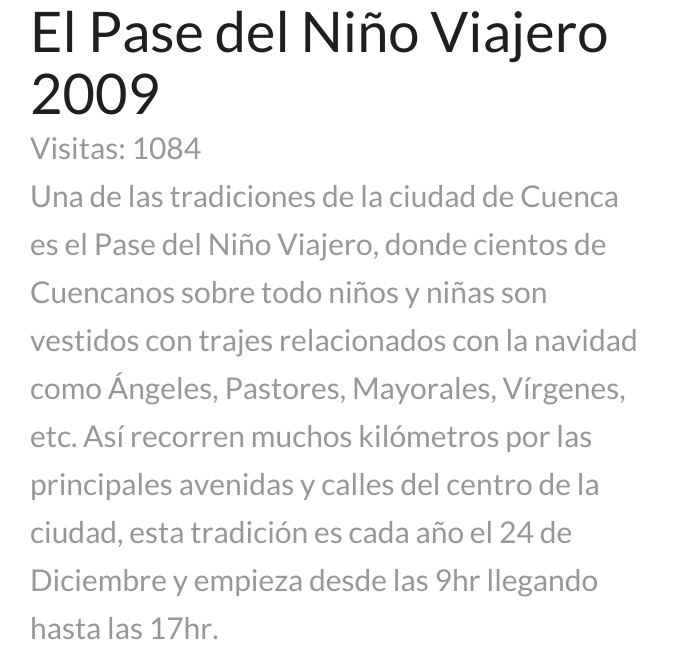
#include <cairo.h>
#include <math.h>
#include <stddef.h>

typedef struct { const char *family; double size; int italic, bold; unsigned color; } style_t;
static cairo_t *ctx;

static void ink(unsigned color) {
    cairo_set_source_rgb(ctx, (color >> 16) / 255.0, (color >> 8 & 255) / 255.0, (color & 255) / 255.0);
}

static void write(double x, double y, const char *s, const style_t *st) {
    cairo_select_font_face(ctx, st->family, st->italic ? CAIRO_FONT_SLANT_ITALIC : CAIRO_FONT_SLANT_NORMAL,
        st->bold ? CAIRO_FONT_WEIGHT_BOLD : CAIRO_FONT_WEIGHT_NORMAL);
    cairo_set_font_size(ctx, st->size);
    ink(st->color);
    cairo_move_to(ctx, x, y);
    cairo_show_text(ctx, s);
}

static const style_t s1 = {"Lato", 56, 0, 0, 0x1f1f1f};
static const style_t s2 = {"Lato", 30, 0, 0, 0x979797};

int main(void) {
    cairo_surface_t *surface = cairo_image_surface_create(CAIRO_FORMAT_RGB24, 679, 660);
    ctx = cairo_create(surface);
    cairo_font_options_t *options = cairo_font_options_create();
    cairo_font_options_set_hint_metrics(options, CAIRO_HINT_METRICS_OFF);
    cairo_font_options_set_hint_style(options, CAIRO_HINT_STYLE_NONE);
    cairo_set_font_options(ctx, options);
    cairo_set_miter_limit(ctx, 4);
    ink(0xffffff);
    cairo_paint(ctx);
    write(30, 52, "El Pase del Niño Viajero", &s1);
    write(30, 114, "2009", &s1);
    write(30, 159, "Visitas: 1084", &s2);
    write(30, 207, "Una de las tradiciones de la ciudad de Cuenca", &s2);
    write(30, 255, "es el Pase del Niño Viajero, donde cientos de", &s2);
    write(30, 303, "Cuencanos sobre todo niños y niñas son", &s2);
    write(30, 351, "vestidos con trajes relacionados con la navidad", &s2);
    write(30, 399, "como Ángeles, Pastores, Mayorales, Vírgenes,", &s2);
    write(30, 447, "etc. Así recorren muchos kilómetros por las", &s2);
    write(30, 495, "principales avenidas y calles del centro de la", &s2);
    write(30, 543, "ciudad, esta tradición es cada año el 24 de", &s2);
    write(30, 591, "Diciembre y empieza desde las 9hr llegando", &s2);
    write(30, 639, "hasta las 17hr.", &s2);
    cairo_surface_write_to_png(surface, "screenshot.png");
    cairo_font_options_destroy(options);
    cairo_destroy(ctx);
    cairo_surface_destroy(surface);
    return 0;
}
